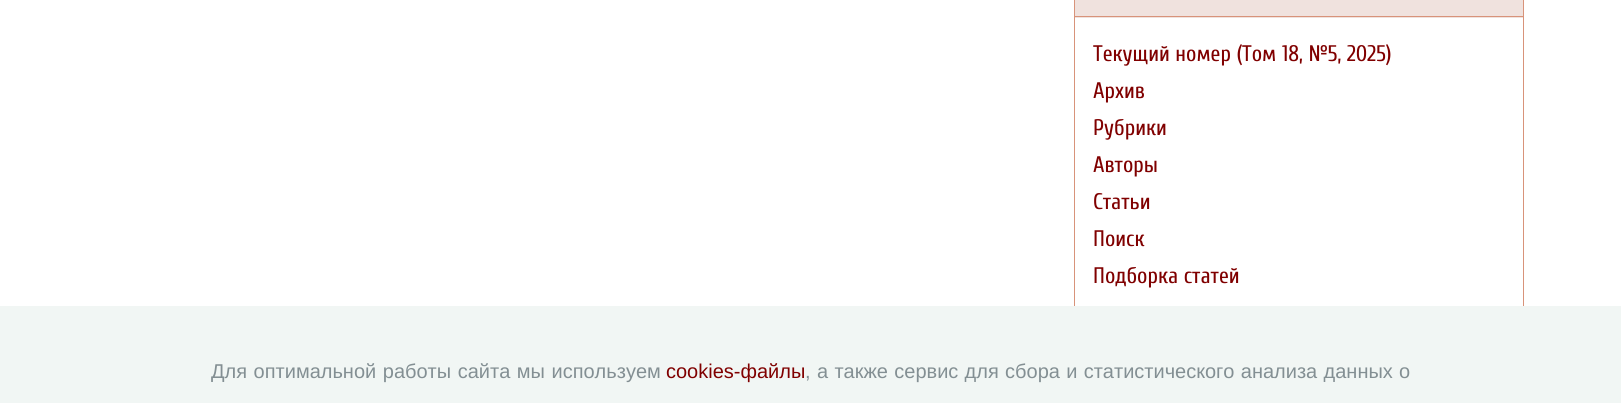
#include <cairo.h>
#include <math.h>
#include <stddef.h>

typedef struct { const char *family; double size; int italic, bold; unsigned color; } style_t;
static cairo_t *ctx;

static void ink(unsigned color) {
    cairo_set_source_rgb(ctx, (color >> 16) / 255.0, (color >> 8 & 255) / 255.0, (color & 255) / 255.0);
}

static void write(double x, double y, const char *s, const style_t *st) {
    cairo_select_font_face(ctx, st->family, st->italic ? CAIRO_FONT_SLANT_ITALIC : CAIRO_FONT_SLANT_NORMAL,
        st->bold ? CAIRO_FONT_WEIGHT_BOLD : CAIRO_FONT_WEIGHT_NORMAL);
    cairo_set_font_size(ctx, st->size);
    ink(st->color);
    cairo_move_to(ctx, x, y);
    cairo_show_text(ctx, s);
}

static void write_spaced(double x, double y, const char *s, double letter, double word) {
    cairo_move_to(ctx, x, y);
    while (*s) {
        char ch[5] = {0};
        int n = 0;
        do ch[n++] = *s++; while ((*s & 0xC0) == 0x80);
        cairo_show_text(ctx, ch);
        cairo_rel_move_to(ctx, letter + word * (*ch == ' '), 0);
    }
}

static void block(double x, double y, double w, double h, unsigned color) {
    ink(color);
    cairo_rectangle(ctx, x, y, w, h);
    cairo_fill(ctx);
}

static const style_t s1 = {"Cuprum", 22.5, 0, 0, 0x800000};
static const style_t s2 = {"Liberation Sans", 20, 0, 0, 0x800000};
static const style_t s3 = {"Liberation Sans", 20, 0, 0, 0x838f93};

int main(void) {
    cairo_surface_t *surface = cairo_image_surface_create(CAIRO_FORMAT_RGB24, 1621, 403);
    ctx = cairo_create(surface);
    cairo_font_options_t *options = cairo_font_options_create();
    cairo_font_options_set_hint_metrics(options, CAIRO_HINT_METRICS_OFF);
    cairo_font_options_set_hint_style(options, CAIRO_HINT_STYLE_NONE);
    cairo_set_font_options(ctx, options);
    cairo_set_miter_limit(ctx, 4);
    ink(0xffffff);
    cairo_paint(ctx);
    block(1523, 0, 1, 314, 0xd8937a);
    block(1074, 0, 1, 314, 0xd8937a);
    block(1075, 0, 448, 18, 0xf0e2de);
    block(1075, 16, 448, 1, 0xd8937a);
    write(1093, 61, "Текущий номер (Том 18, №5, 2025)", &s1);
    write(1093, 98, "Архив", &s1);
    write(1093, 135, "Рубрики", &s1);
    write(1093, 172, "Авторы", &s1);
    write(1093, 209, "Статьи", &s1);
    write(1093, 246, "Поиск", &s1);
    write(1093, 283, "Подборка статей", &s1);
    block(0, 306, 1621, 97, 0xf1f6f4);
    cairo_select_font_face(ctx, "Liberation Sans", CAIRO_FONT_SLANT_NORMAL, CAIRO_FONT_WEIGHT_NORMAL);
    cairo_set_font_size(ctx, 20);
    ink(0x838f93);
    write_spaced(211, 378, "Для оптимальной работы сайта мы используем", 0, 1);
    write(666, 378, "cookies-файлы", &s2);
    write(805, 378, ",", &s3);
    write_spaced(817, 378, "а также сервис для сбора и статистического анализа данных о", 0, 0.75);
    cairo_surface_write_to_png(surface, "screenshot.png");
    cairo_font_options_destroy(options);
    cairo_destroy(ctx);
    cairo_surface_destroy(surface);
    return 0;
}
